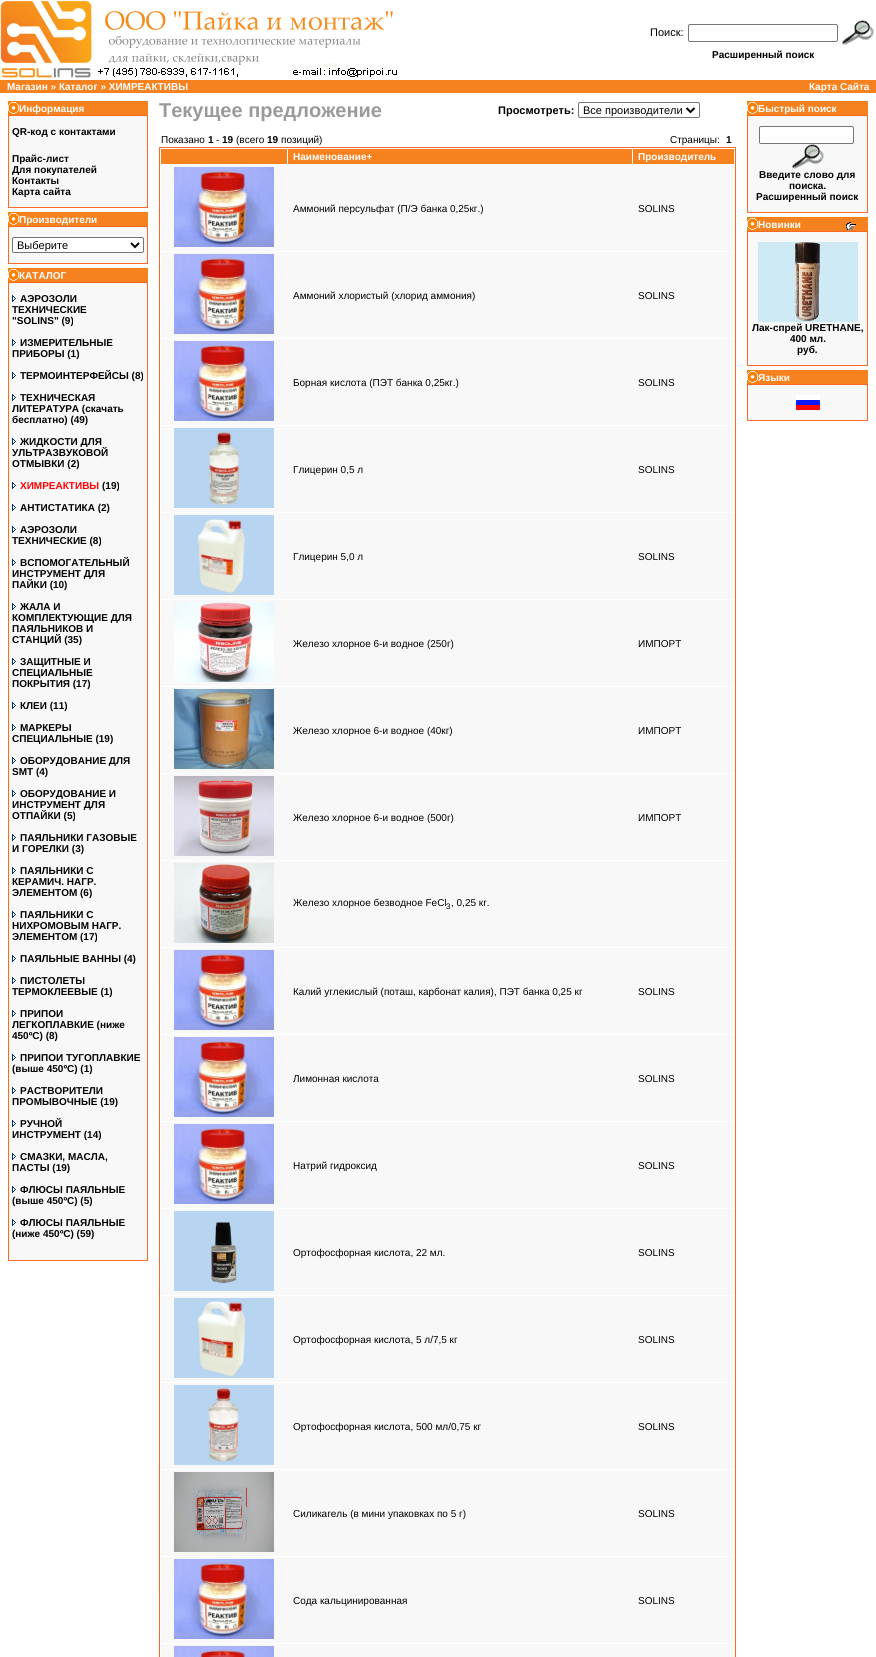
#include <cairo.h>
#include <math.h>
#include <stddef.h>

typedef struct { const char *family; double size; int italic, bold; unsigned color; } style_t;
static cairo_t *ctx;

static void ink(unsigned color) {
    cairo_set_source_rgb(ctx, (color >> 16) / 255.0, (color >> 8 & 255) / 255.0, (color & 255) / 255.0);
}

static void write(double x, double y, const char *s, const style_t *st) {
    cairo_select_font_face(ctx, st->family, st->italic ? CAIRO_FONT_SLANT_ITALIC : CAIRO_FONT_SLANT_NORMAL,
        st->bold ? CAIRO_FONT_WEIGHT_BOLD : CAIRO_FONT_WEIGHT_NORMAL);
    cairo_set_font_size(ctx, st->size);
    ink(st->color);
    cairo_move_to(ctx, x, y);
    cairo_show_text(ctx, s);
}

static void block(double x, double y, double w, double h, unsigned color) {
    ink(color);
    cairo_rectangle(ctx, x, y, w, h);
    cairo_fill(ctx);
}

static void round_path(double x, double y, double w, double h, double r) {
    cairo_new_sub_path(ctx);
    cairo_arc(ctx, x + w - r, y + h - r, r, 0, M_PI / 2);
    cairo_arc(ctx, x + r, y + h - r, r, M_PI / 2, M_PI);
    cairo_arc(ctx, x + r, y + r, r, M_PI, 1.5 * M_PI);
    cairo_arc(ctx, x + w - r, y + r, r, 1.5 * M_PI, 2 * M_PI);
    cairo_close_path(ctx);
}

static void paste(const char *path, double x, double y, double w, double h) {
    cairo_surface_t *image = cairo_image_surface_create_from_png(path);
    cairo_save(ctx);
    cairo_set_source_surface(ctx, image, x, y);
    cairo_rectangle(ctx, x, y, w, h);
    cairo_fill(ctx);
    cairo_restore(ctx);
    cairo_surface_destroy(image);
}

static const style_t s1 = {"Liberation Sans", 11, 0, 0, 0x000000};
static const style_t s2 = {"Liberation Sans", 10, 0, 1, 0x000000};
static const style_t s3 = {"Liberation Sans", 10, 0, 1, 0xffffff};
static const style_t s4 = {"Liberation Sans", 10, 0, 1, 0xff0000};
static const style_t s5 = {"Liberation Sans", 20, 0, 1, 0x9a9a9a};
static const style_t s6 = {"Liberation Sans", 11, 0, 1, 0x000000};
static const style_t s7 = {"Liberation Sans", 10, 0, 0, 0x000000};
static const style_t s8 = {"Liberation Sans", 8, 0, 0, 0x000000};

int main(void) {
    cairo_surface_t *surface = cairo_image_surface_create(CAIRO_FORMAT_RGB24, 876, 1657);
    ctx = cairo_create(surface);
    cairo_font_options_t *options = cairo_font_options_create();
    cairo_font_options_set_hint_metrics(options, CAIRO_HINT_METRICS_OFF);
    cairo_font_options_set_hint_style(options, CAIRO_HINT_STYLE_NONE);
    cairo_set_font_options(ctx, options);
    cairo_set_miter_limit(ctx, 4);
    ink(0xffffff);
    cairo_paint(ctx);
    paste("pic1.png", 0, 0, 397, 78);
    write(650, 36, "Поиск:", &s1);
    round_path(688.5, 24.5, 149, 17, 1.5);
    ink(0x767676);
    cairo_set_line_width(ctx, 1);
    cairo_stroke(ctx);
    paste("pic2.png", 842, 20, 32, 25);
    write(712, 58, "Расширенный поиск", &s2);
    block(0, 80, 876, 13, 0xf5821e);
    write(7, 90, "Магазин » Каталог » ХИМРЕАКТИВЫ", &s3);
    write(809, 90, "Карта Сайта", &s3);
    paste("pic3.png", 8, 101, 11, 14);
    block(19, 101, 129, 14, 0xf5821e);
    write(19, 112, "Информация", &s3);
    block(8, 115, 140, 93, 0xff6928);
    block(9, 116, 138, 91, 0xf8f8f9);
    write(12, 135, "QR-код с контактами", &s2);
    write(12, 162, "Прайс-лист", &s2);
    write(12, 173, "Для покупателей", &s2);
    write(12, 184, "Контакты", &s2);
    write(12, 195, "Карта сайта", &s2);
    paste("pic3.png", 8, 212, 11, 14);
    block(19, 212, 129, 14, 0xf5821e);
    write(19, 223, "Производители", &s3);
    block(8, 226, 140, 38, 0xff6928);
    block(9, 227, 138, 36, 0xf8f8f9);
    ink(0xffffff);
    round_path(12.5, 237.5, 131, 15, 1.5);
    cairo_fill_preserve(ctx);
    ink(0x767676);
    cairo_stroke(ctx);
    cairo_new_path(ctx);
    cairo_move_to(ctx, 131, 243);
    cairo_line_to(ctx, 135, 247);
    cairo_line_to(ctx, 139, 243);
    ink(0x000000);
    cairo_set_line_width(ctx, 2);
    cairo_stroke(ctx);
    write(17, 249, "Выберите", &s1);
    paste("pic3.png", 8, 268, 11, 14);
    block(19, 268, 129, 14, 0xf5821e);
    write(19, 279, "КАТАЛОГ", &s3);
    block(8, 282, 140, 979, 0xff6928);
    block(9, 283, 138, 977, 0xf8f8f9);
    paste("pic4.png", 12, 295, 4, 7);
    write(20, 302, "АЭРОЗОЛИ", &s2);
    write(12, 313, "ТЕХНИЧЕСКИЕ", &s2);
    write(12, 324, "\"SOLINS\" (9)", &s2);
    paste("pic4.png", 12, 339, 4, 7);
    write(20, 346, "ИЗМЕРИТЕЛЬНЫЕ", &s2);
    write(12, 357, "ПРИБОРЫ (1)", &s2);
    paste("pic4.png", 12, 372, 4, 7);
    write(20, 379, "ТЕРМОИНТЕРФЕЙСЫ (8)", &s2);
    paste("pic4.png", 12, 394, 4, 7);
    write(20, 401, "ТЕХНИЧЕСКАЯ", &s2);
    write(12, 412, "ЛИТЕРАТУРА (скачать", &s2);
    write(12, 423, "бесплатно) (49)", &s2);
    paste("pic4.png", 12, 438, 4, 7);
    write(20, 445, "ЖИДКОСТИ ДЛЯ", &s2);
    write(12, 456, "УЛЬТРАЗВУКОВОЙ", &s2);
    write(12, 467, "ОТМЫВКИ (2)", &s2);
    paste("pic4.png", 12, 482, 4, 7);
    write(20, 489, "ХИМРЕАКТИВЫ", &s4);
    write(102, 489, "(19)", &s2);
    paste("pic4.png", 12, 504, 4, 7);
    write(20, 511, "АНТИСТАТИКА (2)", &s2);
    paste("pic4.png", 12, 526, 4, 7);
    write(20, 533, "АЭРОЗОЛИ", &s2);
    write(12, 544, "ТЕХНИЧЕСКИЕ (8)", &s2);
    paste("pic4.png", 12, 559, 4, 7);
    write(20, 566, "ВСПОМОГАТЕЛЬНЫЙ", &s2);
    write(12, 577, "ИНСТРУМЕНТ ДЛЯ", &s2);
    write(12, 588, "ПАЙКИ (10)", &s2);
    paste("pic4.png", 12, 603, 4, 7);
    write(20, 610, "ЖАЛА И", &s2);
    write(12, 621, "КОМПЛЕКТУЮЩИЕ ДЛЯ", &s2);
    write(12, 632, "ПАЯЛЬНИКОВ И", &s2);
    write(12, 643, "СТАНЦИЙ (35)", &s2);
    paste("pic4.png", 12, 658, 4, 7);
    write(20, 665, "ЗАЩИТНЫЕ И", &s2);
    write(12, 676, "СПЕЦИАЛЬНЫЕ", &s2);
    write(12, 687, "ПОКРЫТИЯ (17)", &s2);
    paste("pic4.png", 12, 702, 4, 7);
    write(20, 709, "КЛЕИ (11)", &s2);
    paste("pic4.png", 12, 724, 4, 7);
    write(20, 731, "МАРКЕРЫ", &s2);
    write(12, 742, "СПЕЦИАЛЬНЫЕ (19)", &s2);
    paste("pic4.png", 12, 757, 4, 7);
    write(20, 764, "ОБОРУДОВАНИЕ ДЛЯ", &s2);
    write(12, 775, "SMT (4)", &s2);
    paste("pic4.png", 12, 790, 4, 7);
    write(20, 797, "ОБОРУДОВАНИЕ И", &s2);
    write(12, 808, "ИНСТРУМЕНТ ДЛЯ", &s2);
    write(12, 819, "ОТПАЙКИ (5)", &s2);
    paste("pic4.png", 12, 834, 4, 7);
    write(20, 841, "ПАЯЛЬНИКИ ГАЗОВЫЕ", &s2);
    write(12, 852, "И ГОРЕЛКИ (3)", &s2);
    paste("pic4.png", 12, 867, 4, 7);
    write(20, 874, "ПАЯЛЬНИКИ С", &s2);
    write(12, 885, "КЕРАМИЧ. НАГР.", &s2);
    write(12, 896, "ЭЛЕМЕНТОМ (6)", &s2);
    paste("pic4.png", 12, 911, 4, 7);
    write(20, 918, "ПАЯЛЬНИКИ С", &s2);
    write(12, 929, "НИХРОМОВЫМ НАГР.", &s2);
    write(12, 940, "ЭЛЕМЕНТОМ (17)", &s2);
    paste("pic4.png", 12, 955, 4, 7);
    write(20, 962, "ПАЯЛЬНЫЕ ВАННЫ (4)", &s2);
    paste("pic4.png", 12, 977, 4, 7);
    write(20, 984, "ПИСТОЛЕТЫ", &s2);
    write(12, 995, "ТЕРМОКЛЕЕВЫЕ (1)", &s2);
    paste("pic4.png", 12, 1010, 4, 7);
    write(20, 1017, "ПРИПОИ", &s2);
    write(12, 1028, "ЛЕГКОПЛАВКИЕ (ниже", &s2);
    write(12, 1039, "450ºС) (8)", &s2);
    paste("pic4.png", 12, 1054, 4, 7);
    write(20, 1061, "ПРИПОИ ТУГОПЛАВКИЕ", &s2);
    write(12, 1072, "(выше 450ºС) (1)", &s2);
    paste("pic4.png", 12, 1087, 4, 7);
    write(20, 1094, "РАСТВОРИТЕЛИ", &s2);
    write(12, 1105, "ПРОМЫВОЧНЫЕ (19)", &s2);
    paste("pic4.png", 12, 1120, 4, 7);
    write(20, 1127, "РУЧНОЙ", &s2);
    write(12, 1138, "ИНСТРУМЕНТ (14)", &s2);
    paste("pic4.png", 12, 1153, 4, 7);
    write(20, 1160, "СМАЗКИ, МАСЛА,", &s2);
    write(12, 1171, "ПАСТЫ (19)", &s2);
    paste("pic4.png", 12, 1186, 4, 7);
    write(20, 1193, "ФЛЮСЫ ПАЯЛЬНЫЕ", &s2);
    write(12, 1204, "(выше 450ºC) (5)", &s2);
    paste("pic4.png", 12, 1219, 4, 7);
    write(20, 1226, "ФЛЮСЫ ПАЯЛЬНЫЕ", &s2);
    write(12, 1237, "(ниже 450ºC) (59)", &s2);
    write(159, 117, "Текущее предложение", &s5);
    write(498, 114, "Просмотреть:", &s6);
    round_path(578.5, 102.5, 121, 15, 1.5);
    ink(0x767676);
    cairo_set_line_width(ctx, 1);
    cairo_stroke(ctx);
    cairo_new_path(ctx);
    cairo_move_to(ctx, 686.5, 108);
    cairo_line_to(ctx, 690.5, 112);
    cairo_line_to(ctx, 694.5, 108);
    ink(0x000000);
    cairo_set_line_width(ctx, 2);
    cairo_stroke(ctx);
    write(583, 114, "Все производители", &s1);
    write(161, 143, "Показано", &s7);
    write(208, 143, "1", &s2);
    write(216, 143, "-", &s7);
    write(222, 143, "19", &s2);
    write(236, 143, "(всего", &s7);
    write(267, 143, "19", &s2);
    write(281, 143, "позиций)", &s7);
    write(670, 143, "Страницы:", &s7);
    write(726, 143, "1", &s2);
    cairo_rectangle(ctx, 159.5, 147.5, 576, 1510);
    ink(0xff6928);
    cairo_set_line_width(ctx, 1);
    cairo_stroke(ctx);
    block(161, 149, 126, 15, 0xf5821e);
    block(288, 149, 344, 15, 0xf5821e);
    write(293, 160, "Наименование+", &s3);
    block(633, 149, 101, 15, 0xf5821e);
    write(638, 160, "Производитель", &s3);
    block(161, 165, 573, 86, 0xf8f8f9);
    paste("pic5.png", 174, 167, 100, 80);
    write(293, 212, "Аммоний персульфат (П/Э банка 0,25кг.)", &s7);
    write(638, 212, "SOLINS", &s7);
    block(161, 252, 573, 86, 0xf8f8f9);
    paste("pic6.png", 174, 254, 100, 80);
    write(293, 299, "Аммоний хлористый (хлорид аммония)", &s7);
    write(638, 299, "SOLINS", &s7);
    block(161, 339, 573, 86, 0xf8f8f9);
    paste("pic7.png", 174, 341, 100, 80);
    write(293, 386, "Борная кислота (ПЭT банка 0,25кг.)", &s7);
    write(638, 386, "SOLINS", &s7);
    block(161, 426, 573, 86, 0xf8f8f9);
    paste("pic8.png", 174, 428, 100, 80);
    write(293, 473, "Глицерин 0,5 л", &s7);
    write(638, 473, "SOLINS", &s7);
    block(161, 513, 573, 86, 0xf8f8f9);
    paste("pic9.png", 174, 515, 100, 80);
    write(293, 560, "Глицерин 5,0 л", &s7);
    write(638, 560, "SOLINS", &s7);
    block(161, 600, 573, 86, 0xf8f8f9);
    paste("pic10.png", 174, 602, 100, 80);
    write(293, 647, "Железо хлорное 6-и водное (250г)", &s7);
    write(638, 647, "ИМПОРТ", &s7);
    block(161, 687, 573, 86, 0xf8f8f9);
    paste("pic11.png", 174, 689, 100, 80);
    write(293, 734, "Железо хлорное 6-и водное (40кг)", &s7);
    write(638, 734, "ИМПОРТ", &s7);
    block(161, 774, 573, 86, 0xf8f8f9);
    paste("pic12.png", 174, 776, 100, 80);
    write(293, 821, "Железо хлорное 6-и водное (500г)", &s7);
    write(638, 821, "ИМПОРТ", &s7);
    block(161, 861, 573, 86, 0xf8f8f9);
    paste("pic13.png", 174, 863, 100, 80);
    write(293, 906, "Железо хлорное безводное FeCl", &s7);
    write(446, 909, "3", &s8);
    write(451, 906, ", 0,25 кг.", &s7);
    block(161, 948, 573, 86, 0xf8f8f9);
    paste("pic14.png", 174, 950, 100, 80);
    write(293, 995, "Калий углекислый (поташ, карбонат калия), ПЭТ банка 0,25 кг", &s7);
    write(638, 995, "SOLINS", &s7);
    block(161, 1035, 573, 86, 0xf8f8f9);
    paste("pic15.png", 174, 1037, 100, 80);
    write(293, 1082, "Лимонная кислота", &s7);
    write(638, 1082, "SOLINS", &s7);
    block(161, 1122, 573, 86, 0xf8f8f9);
    paste("pic16.png", 174, 1124, 100, 80);
    write(293, 1169, "Натрий гидроксид", &s7);
    write(638, 1169, "SOLINS", &s7);
    block(161, 1209, 573, 86, 0xf8f8f9);
    paste("pic17.png", 174, 1211, 100, 80);
    write(293, 1256, "Ортофосфорная кислота, 22 мл.", &s7);
    write(638, 1256, "SOLINS", &s7);
    block(161, 1296, 573, 86, 0xf8f8f9);
    paste("pic18.png", 174, 1298, 100, 80);
    write(293, 1343, "Ортофосфорная кислота, 5 л/7,5 кг", &s7);
    write(638, 1343, "SOLINS", &s7);
    block(161, 1383, 573, 86, 0xf8f8f9);
    paste("pic19.png", 174, 1385, 100, 80);
    write(293, 1430, "Ортофосфорная кислота, 500 мл/0,75 кг", &s7);
    write(638, 1430, "SOLINS", &s7);
    block(161, 1470, 573, 86, 0xf8f8f9);
    paste("pic20.png", 174, 1472, 100, 80);
    write(293, 1517, "Силикагель (в мини упаковках по 5 г)", &s7);
    write(638, 1517, "SOLINS", &s7);
    block(161, 1557, 573, 86, 0xf8f8f9);
    paste("pic21.png", 174, 1559, 100, 80);
    write(293, 1604, "Сода кальцинированная", &s7);
    write(638, 1604, "SOLINS", &s7);
    block(161, 1644, 573, 13, 0xf8f8f9);
    paste("pic22.png", 174, 1646, 100, 11);
    paste("pic3.png", 747, 101, 11, 14);
    block(758, 101, 110, 14, 0xf5821e);
    write(758, 112, "Быстрый поиск", &s3);
    block(747, 115, 121, 98, 0xff6928);
    block(748, 116, 119, 96, 0xf8f8f9);
    ink(0xffffff);
    round_path(759.5, 126.5, 94, 17, 1.5);
    cairo_fill_preserve(ctx);
    ink(0x767676);
    cairo_stroke(ctx);
    paste("pic23.png", 792, 144, 32, 25);
    write(759, 178, "Введите слово для", &s2);
    write(789, 189, "поиска.", &s2);
    write(756, 200, "Расширенный поиск", &s2);
    paste("pic3.png", 747, 217, 11, 14);
    block(758, 217, 110, 14, 0xf5821e);
    write(758, 228, "Новинки", &s3);
    paste("pic24.png", 846, 222, 10, 8);
    block(747, 231, 121, 135, 0xff6928);
    block(748, 232, 119, 133, 0xf8f8f9);
    paste("pic25.png", 758, 242, 100, 80);
    write(752, 331, "Лак-спрей URETHANE,", &s2);
    write(790, 342, "400 мл.", &s2);
    write(797, 353, "руб.", &s2);
    paste("pic3.png", 747, 370, 11, 14);
    block(758, 370, 110, 14, 0xf5821e);
    write(758, 381, "Языки", &s3);
    block(747, 384, 121, 37, 0xff6928);
    block(748, 385, 119, 35, 0xf8f8f9);
    paste("pic26.png", 796, 395, 24, 15);
    cairo_surface_write_to_png(surface, "screenshot.png");
    cairo_font_options_destroy(options);
    cairo_destroy(ctx);
    cairo_surface_destroy(surface);
    return 0;
}
